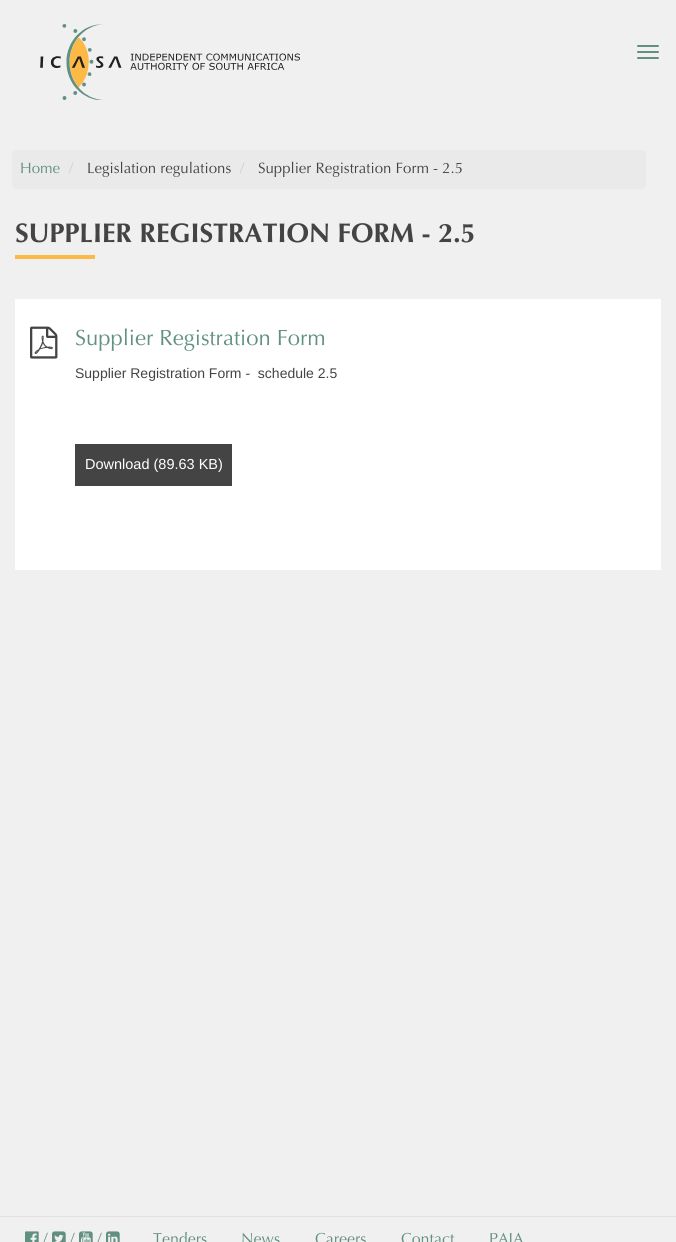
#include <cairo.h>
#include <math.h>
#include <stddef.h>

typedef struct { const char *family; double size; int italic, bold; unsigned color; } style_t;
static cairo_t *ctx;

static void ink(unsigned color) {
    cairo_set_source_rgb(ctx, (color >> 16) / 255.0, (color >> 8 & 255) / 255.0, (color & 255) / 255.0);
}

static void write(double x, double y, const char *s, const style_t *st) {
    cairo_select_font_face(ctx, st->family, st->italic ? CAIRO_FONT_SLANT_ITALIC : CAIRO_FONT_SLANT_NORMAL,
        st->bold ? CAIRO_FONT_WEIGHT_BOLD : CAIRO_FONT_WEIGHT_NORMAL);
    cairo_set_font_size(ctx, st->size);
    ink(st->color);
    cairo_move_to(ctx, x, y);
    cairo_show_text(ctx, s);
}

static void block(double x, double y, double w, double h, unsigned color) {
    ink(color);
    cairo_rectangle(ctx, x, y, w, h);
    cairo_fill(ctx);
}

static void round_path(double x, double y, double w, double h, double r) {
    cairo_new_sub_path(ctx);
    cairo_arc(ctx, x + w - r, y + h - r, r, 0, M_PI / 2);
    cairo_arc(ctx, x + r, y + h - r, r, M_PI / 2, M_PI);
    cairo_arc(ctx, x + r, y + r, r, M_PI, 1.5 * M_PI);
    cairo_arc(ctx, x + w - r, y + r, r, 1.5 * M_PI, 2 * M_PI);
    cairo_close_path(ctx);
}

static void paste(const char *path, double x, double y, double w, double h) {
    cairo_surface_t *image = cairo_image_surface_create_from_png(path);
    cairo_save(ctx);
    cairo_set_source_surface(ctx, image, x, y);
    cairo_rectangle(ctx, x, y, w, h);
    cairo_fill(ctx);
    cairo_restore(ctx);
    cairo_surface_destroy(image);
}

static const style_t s1 = {"Optima", 15, 0, 0, 0x619081};
static const style_t s2 = {"Optima", 15, 0, 0, 0xcccccc};
static const style_t s3 = {"Optima", 15, 0, 0, 0x444444};
static const style_t s4 = {"Optima", 27, 0, 1, 0x444444};
static const style_t s5 = {"Optima", 22, 0, 0, 0x619081};
static const style_t s6 = {"Liberation Sans", 14, 0, 0, 0x444444};
static const style_t s7 = {"Liberation Sans", 14.5, 0, 0, 0xffffff};
static const style_t s8 = {"Optima", 16, 0, 0, 0x619081};

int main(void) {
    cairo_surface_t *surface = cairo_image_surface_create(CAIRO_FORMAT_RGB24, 676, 1242);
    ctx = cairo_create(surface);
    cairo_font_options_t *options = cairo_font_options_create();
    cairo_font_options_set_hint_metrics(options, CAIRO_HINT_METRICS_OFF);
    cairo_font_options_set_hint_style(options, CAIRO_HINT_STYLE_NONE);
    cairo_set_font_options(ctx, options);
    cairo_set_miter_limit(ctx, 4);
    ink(0xf0f0f0);
    cairo_paint(ctx);
    paste("pic1.png", 40, 24, 260, 76);
    ink(0x619081);
    round_path(637, 45, 22, 2, 1);
    cairo_fill(ctx);
    round_path(637, 51, 22, 2, 1);
    cairo_fill(ctx);
    round_path(637, 57, 22, 2, 1);
    cairo_fill(ctx);
    ink(0xeaeaea);
    round_path(12, 150, 634, 39, 4);
    cairo_fill(ctx);
    write(20, 173, "Home", &s1);
    write(69, 173, "/", &s2);
    write(87, 173, "Legislation regulations", &s3);
    write(240, 173, "/", &s2);
    write(258, 173, "Supplier Registration Form - 2.5", &s3);
    write(15, 242, "SUPPLIER REGISTRATION FORM - 2.5", &s4);
    block(15, 255, 80, 4, 0xfdb945);
    block(15, 299, 646, 271, 0xffffff);
    paste("pic2.png", 30, 326, 28, 33);
    write(75, 345, "Supplier Registration Form", &s5);
    write(75, 378, "Supplier Registration Form -  schedule 2.5", &s6);
    block(75, 444, 157, 42, 0x444444);
    write(85, 469, "Download (89.63 KB)", &s7);
    block(0, 1216, 676, 1, 0xe1e1e1);
    paste("pic3.png", 25, 1231, 14, 11);
    write(43, 1244, "/", &s8);
    paste("pic4.png", 52, 1231, 14, 11);
    write(70, 1244, "/", &s8);
    paste("pic5.png", 79, 1231, 14, 11);
    write(97, 1244, "/", &s8);
    paste("pic6.png", 106, 1231, 14, 11);
    write(153, 1244, "Tenders", &s8);
    write(241, 1244, "News", &s8);
    write(315, 1244, "Careers", &s8);
    write(401, 1244, "Contact", &s8);
    write(489, 1244, "PAIA", &s8);
    cairo_surface_write_to_png(surface, "screenshot.png");
    cairo_font_options_destroy(options);
    cairo_destroy(ctx);
    cairo_surface_destroy(surface);
    return 0;
}
